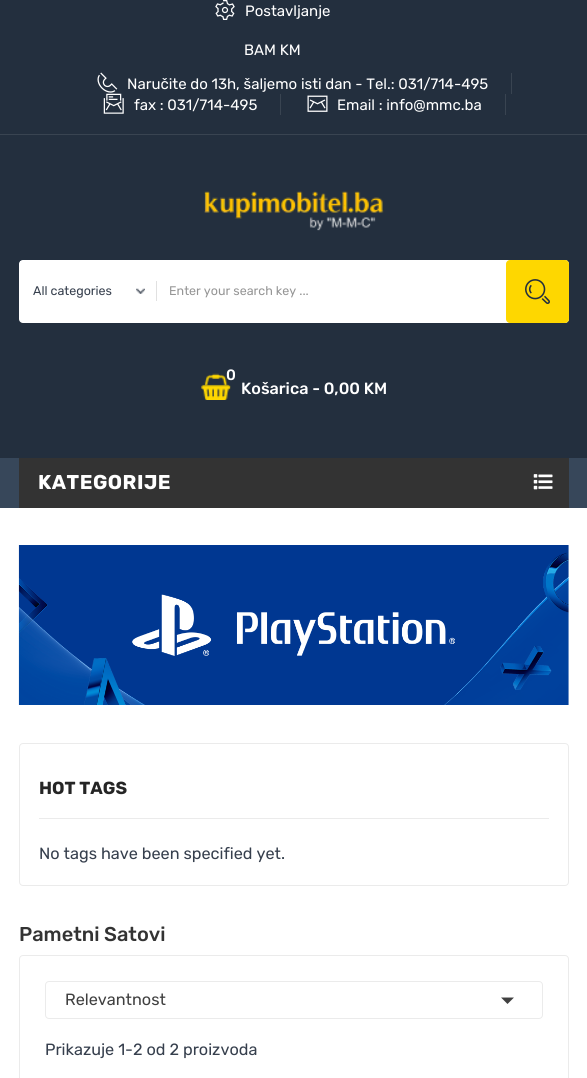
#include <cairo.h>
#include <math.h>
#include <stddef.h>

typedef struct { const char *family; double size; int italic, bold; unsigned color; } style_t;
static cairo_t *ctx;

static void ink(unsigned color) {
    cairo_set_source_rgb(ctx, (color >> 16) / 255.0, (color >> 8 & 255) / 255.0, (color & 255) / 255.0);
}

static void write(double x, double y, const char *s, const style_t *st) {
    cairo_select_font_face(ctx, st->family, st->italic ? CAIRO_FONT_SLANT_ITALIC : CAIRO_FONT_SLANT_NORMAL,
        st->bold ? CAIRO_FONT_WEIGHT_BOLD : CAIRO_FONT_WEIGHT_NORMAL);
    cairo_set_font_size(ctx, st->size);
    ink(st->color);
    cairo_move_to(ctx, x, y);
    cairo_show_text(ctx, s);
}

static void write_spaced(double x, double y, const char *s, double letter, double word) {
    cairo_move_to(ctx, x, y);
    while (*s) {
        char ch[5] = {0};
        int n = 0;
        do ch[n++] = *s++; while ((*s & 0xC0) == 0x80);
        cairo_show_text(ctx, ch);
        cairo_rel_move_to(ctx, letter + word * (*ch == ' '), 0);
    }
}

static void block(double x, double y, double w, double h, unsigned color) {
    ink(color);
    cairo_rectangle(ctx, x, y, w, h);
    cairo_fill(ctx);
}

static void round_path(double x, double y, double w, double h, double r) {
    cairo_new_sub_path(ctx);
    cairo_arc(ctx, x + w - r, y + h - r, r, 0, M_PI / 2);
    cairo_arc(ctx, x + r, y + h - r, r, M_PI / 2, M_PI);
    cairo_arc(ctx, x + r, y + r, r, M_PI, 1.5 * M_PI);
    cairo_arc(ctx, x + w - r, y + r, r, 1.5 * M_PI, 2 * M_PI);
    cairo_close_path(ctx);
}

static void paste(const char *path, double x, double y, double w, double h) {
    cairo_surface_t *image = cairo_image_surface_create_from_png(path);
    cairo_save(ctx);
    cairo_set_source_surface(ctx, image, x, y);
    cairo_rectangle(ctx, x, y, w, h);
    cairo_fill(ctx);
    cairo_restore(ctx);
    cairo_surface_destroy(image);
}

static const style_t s1 = {"Rubik", 15, 0, 0, 0xffffff};
static const style_t s2 = {"Rubik", 12.5, 0, 0, 0x363f4d};
static const style_t s3 = {"Rubik", 12.5, 0, 0, 0x959595};
static const style_t s4 = {"Rubik Medium", 15, 0, 0, 0xffffff};
static const style_t s5 = {"Rubik Medium", 16.25, 0, 0, 0xffffff};
static const style_t s6 = {"Rubik", 17.5, 0, 1, 0x252525};
static const style_t s7 = {"Rubik", 16.25, 0, 0, 0x363f4d};
static const style_t s8 = {"Rubik Medium", 20, 0, 0, 0x333333};
static const style_t s9 = {"Rubik", 16.25, 0, 0, 0x404040};

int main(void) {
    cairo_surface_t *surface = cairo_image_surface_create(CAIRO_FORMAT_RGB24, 587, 1078);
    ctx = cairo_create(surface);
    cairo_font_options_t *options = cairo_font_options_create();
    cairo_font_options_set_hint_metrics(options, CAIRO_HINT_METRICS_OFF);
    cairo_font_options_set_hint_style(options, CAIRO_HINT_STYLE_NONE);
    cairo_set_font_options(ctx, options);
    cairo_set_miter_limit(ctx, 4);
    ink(0xffffff);
    cairo_paint(ctx);
    block(0, 0, 587, 458, 0x232f3e);
    paste("pic1.png", 215, 0, 20, 20);
    write(245, 16, "Postavljanje", &s1);
    block(0, 134, 587, 1, 0x394451);
    write(244, 55, "BAM KM", &s1);
    block(511, 73, 1, 21, 0x394451);
    paste("pic2.png", 97, 72, 21, 21);
    write(127, 89, "Naručite do 13h, šaljemo isti dan - Tel.: 031/714-495", &s1);
    block(280, 94, 1, 21, 0x394451);
    paste("pic3.png", 103, 93, 21, 21);
    write(134, 110, "fax : 031/714-495", &s1);
    block(505, 94, 1, 21, 0x394451);
    paste("pic4.png", 307, 95, 21, 17);
    write(337, 110, "Email : info@mmc.ba", &s1);
    paste("pic5.png", 204, 191, 180, 40);
    round_path(19, 260, 550, 63, 4);
    cairo_fill(ctx);
    block(20, 261, 1, 1, 0xffffff);
    paste("pic6.png", 136, 288, 9, 6);
    write(33, 295, "All categories", &s2);
    block(156, 281, 1, 20, 0xe1e1e1);
    write(169, 295, "Enter your search key ...", &s3);
    ink(0xfed700);
    round_path(506, 260, 63, 63, 4);
    cairo_fill(ctx);
    paste("pic7.png", 525, 279, 25, 25);
    paste("pic8.png", 201, 373, 30, 27);
    write(226, 380, "0", &s4);
    write(241, 394, "Košarica - 0,00 KM", &s5);
    block(0, 458, 587, 50, 0x37475a);
    block(19, 458, 550, 50, 0x333333);
    cairo_select_font_face(ctx, "Rubik", CAIRO_FONT_SLANT_NORMAL, CAIRO_FONT_WEIGHT_BOLD);
    cairo_set_font_size(ctx, 20);
    ink(0xffffff);
    write_spaced(38, 489, "KATEGORIJE", 0.5, 0);
    paste("pic9.png", 533, 474, 20, 16);
    paste("pic10.png", 18, 545, 551, 160);
    round_path(19.5, 743.5, 549, 142, 3.5);
    ink(0xebebeb);
    cairo_set_line_width(ctx, 1);
    cairo_stroke(ctx);
    block(39, 818, 510, 1, 0xebebeb);
    write(39, 794, "HOT TAGS", &s6);
    write(39, 859, "No tags have been specified yet.", &s7);
    write(19, 941, "Pametni Satovi", &s8);
    round_path(19.5, 955.5, 549, 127, 3.5);
    ink(0xebebeb);
    cairo_stroke(ctx);
    round_path(45.5, 981.5, 497, 37, 3.5);
    cairo_stroke(ctx);
    write(65, 1005, "Relevantnost", &s9);
    cairo_new_path(ctx);
    cairo_move_to(ctx, 501, 997.5);
    cairo_line_to(ctx, 514, 997.5);
    cairo_line_to(ctx, 507.5, 1004);
    cairo_close_path(ctx);
    cairo_fill(ctx);
    write(45, 1055, "Prikazuje 1-2 od 2 proizvoda", &s7);
    cairo_surface_write_to_png(surface, "screenshot.png");
    cairo_font_options_destroy(options);
    cairo_destroy(ctx);
    cairo_surface_destroy(surface);
    return 0;
}
